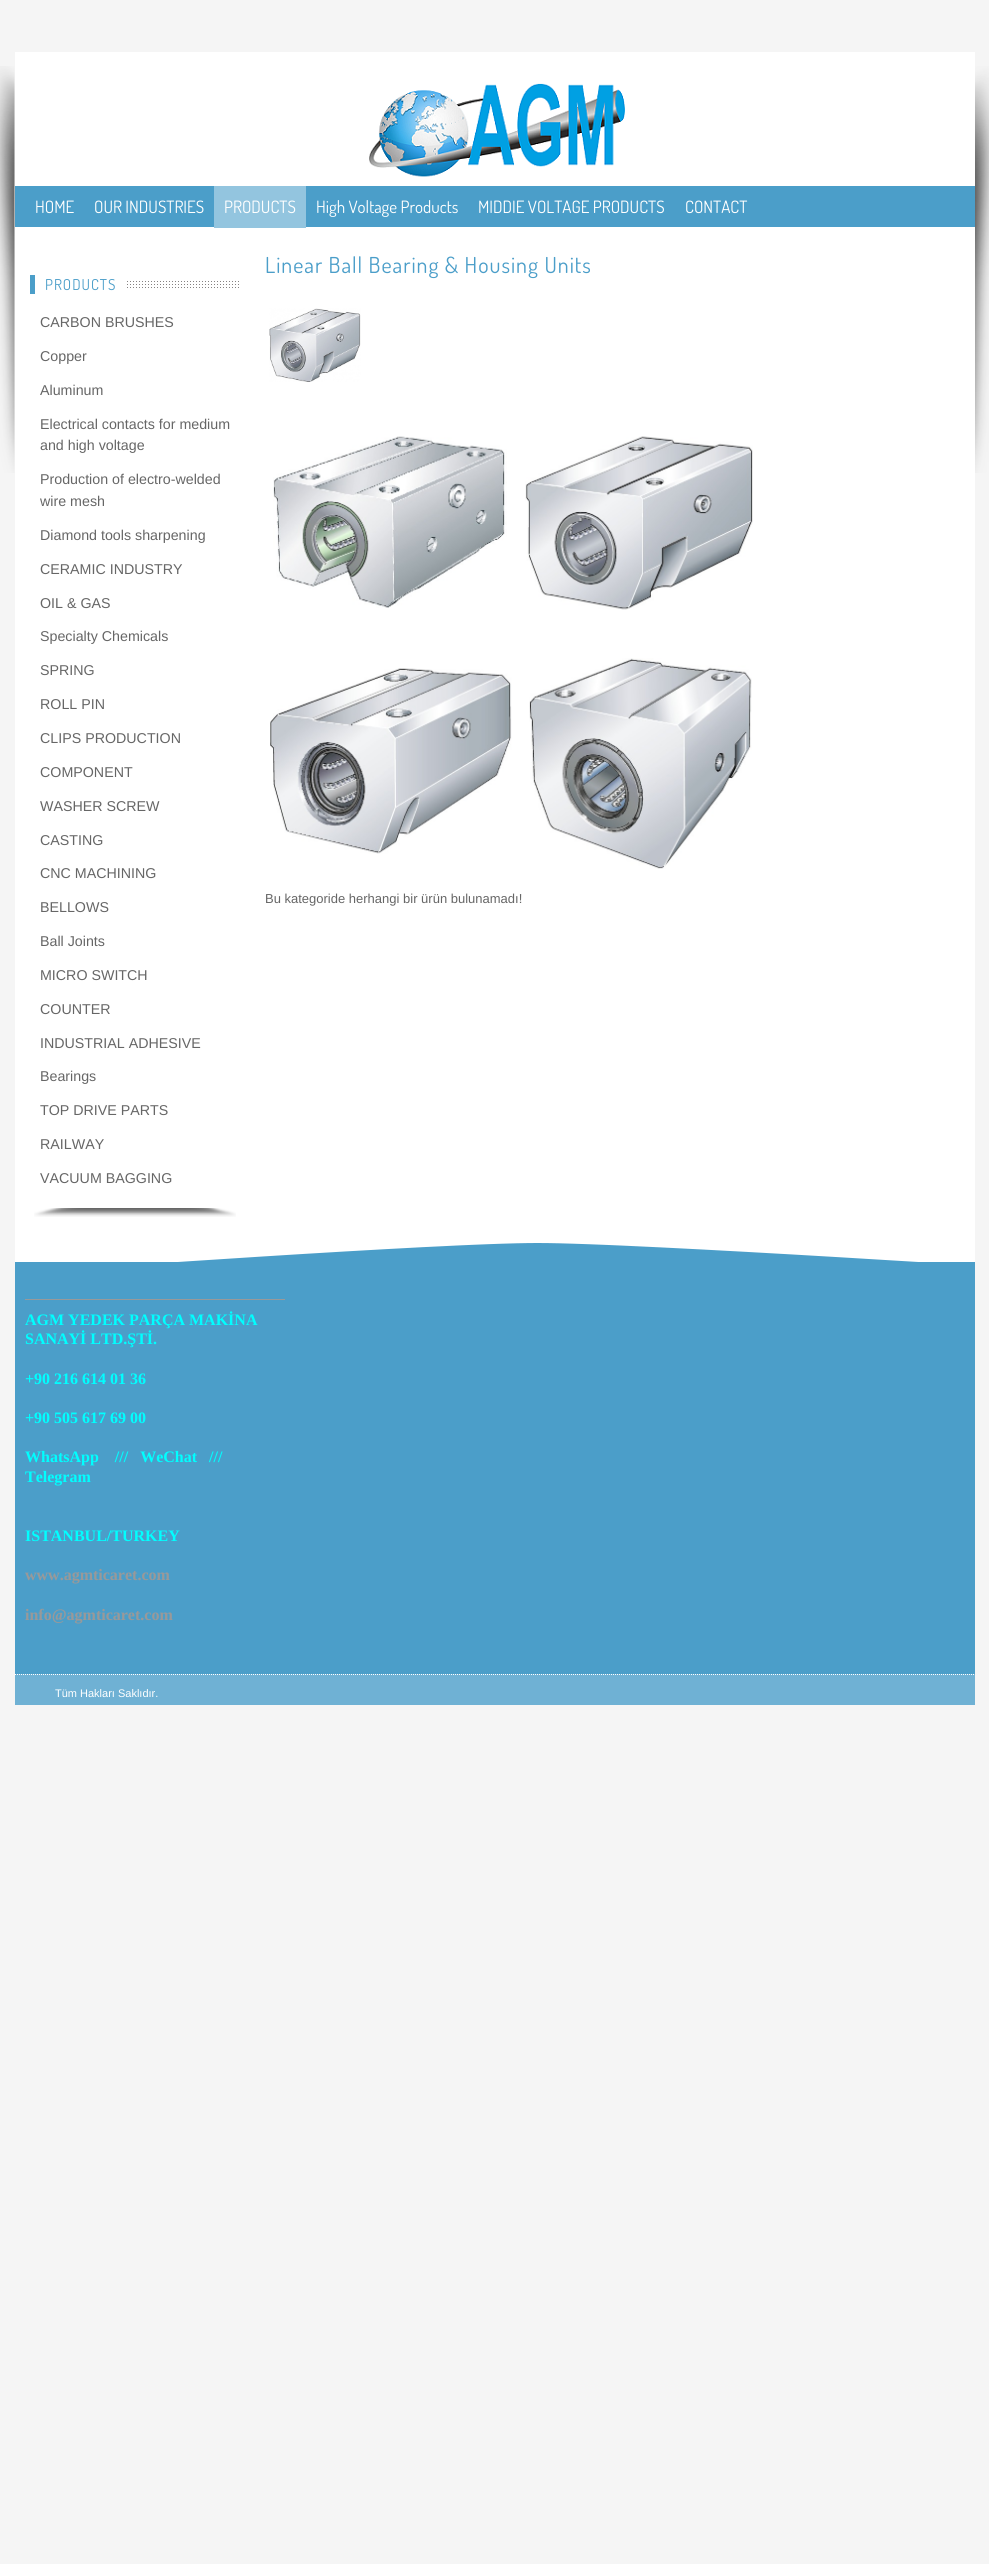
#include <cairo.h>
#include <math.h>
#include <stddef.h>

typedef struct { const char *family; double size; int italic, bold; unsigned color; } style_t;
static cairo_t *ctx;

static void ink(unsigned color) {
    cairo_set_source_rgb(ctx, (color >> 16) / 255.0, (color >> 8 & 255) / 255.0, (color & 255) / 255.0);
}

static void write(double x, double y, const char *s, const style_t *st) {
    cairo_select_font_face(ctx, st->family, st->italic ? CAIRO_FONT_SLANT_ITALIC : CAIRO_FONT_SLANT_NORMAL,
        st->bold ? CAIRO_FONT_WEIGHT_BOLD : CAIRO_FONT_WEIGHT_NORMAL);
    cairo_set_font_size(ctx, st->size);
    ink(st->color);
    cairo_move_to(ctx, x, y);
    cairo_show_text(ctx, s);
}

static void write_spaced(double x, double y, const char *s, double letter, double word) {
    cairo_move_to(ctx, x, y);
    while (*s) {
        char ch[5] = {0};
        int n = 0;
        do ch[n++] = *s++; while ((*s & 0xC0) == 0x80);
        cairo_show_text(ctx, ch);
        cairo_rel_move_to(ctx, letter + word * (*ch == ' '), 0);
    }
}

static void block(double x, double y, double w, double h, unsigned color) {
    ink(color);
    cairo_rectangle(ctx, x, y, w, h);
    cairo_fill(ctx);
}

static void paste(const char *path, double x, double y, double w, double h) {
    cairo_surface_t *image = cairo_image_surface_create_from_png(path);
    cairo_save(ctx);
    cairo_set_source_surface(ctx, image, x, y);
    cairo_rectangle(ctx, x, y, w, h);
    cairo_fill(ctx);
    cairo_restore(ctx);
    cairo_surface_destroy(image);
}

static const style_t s1 = {"Dosis", 17, 0, 0, 0xffffff};
static const style_t s2 = {"Liberation Sans", 14.25, 0, 0, 0x666666};
static const style_t s3 = {"Liberation Sans", 13, 0, 0, 0x666666};
static const style_t s4 = {"Liberation Serif", 16, 0, 1, 0x00ffff};
static const style_t s5 = {"Liberation Serif", 16, 0, 1, 0x999999};
static const style_t s6 = {"Liberation Sans", 11, 0, 0, 0xffffff};

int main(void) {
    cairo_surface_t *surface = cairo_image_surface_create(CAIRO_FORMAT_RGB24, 989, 2564);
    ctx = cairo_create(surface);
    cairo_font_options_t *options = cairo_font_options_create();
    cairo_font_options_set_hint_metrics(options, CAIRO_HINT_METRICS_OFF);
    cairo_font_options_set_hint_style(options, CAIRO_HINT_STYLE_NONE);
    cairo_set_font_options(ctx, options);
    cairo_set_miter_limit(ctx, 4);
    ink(0xf5f5f5);
    cairo_paint(ctx);
    paste("pic1.png", 0, 66, 989, 407);
    block(15, 52, 960, 1210, 0xffffff);
    paste("pic2.png", 369, 83, 256, 94);
    block(15, 186, 960, 41, 0x4b9ec9);
    write(35, 213, "HOME", &s1);
    write(94, 213, "OUR INDUSTRIES", &s1);
    block(214, 186, 92, 42, 0x93c5df);
    write(224, 213, "PRODUCTS", &s1);
    write(316, 213, "High Voltage Products", &s1);
    write(478, 213, "MIDDIE VOLTAGE PRODUCTS", &s1);
    write(685, 213, "CONTACT", &s1);
    paste("pic3.png", 34, 1208, 202, 9);
    paste("pic4.png", 127, 281, 112, 7);
    cairo_set_font_size(ctx, 15);
    ink(0x4b9ec9);
    write_spaced(45, 290, "PRODUCTS", 1, 0);
    block(30, 275, 5, 19, 0x4b9ec9);
    write(40, 327, "CARBON BRUSHES", &s2);
    write(40, 361, "Copper", &s2);
    write(40, 395, "Aluminum", &s2);
    write(40, 429, "Electrical contacts for medium", &s2);
    write(40, 450, "and high voltage", &s2);
    write(40, 484, "Production of electro-welded", &s2);
    write(40, 506, "wire mesh", &s2);
    write(40, 540, "Diamond tools sharpening", &s2);
    write(40, 574, "CERAMIC INDUSTRY", &s2);
    write(40, 608, "OIL & GAS", &s2);
    write(40, 641, "Specialty Chemicals", &s2);
    write(40, 675, "SPRING", &s2);
    write(40, 709, "ROLL PIN", &s2);
    write(40, 743, "CLIPS PRODUCTION", &s2);
    write(40, 777, "COMPONENT", &s2);
    write(40, 811, "WASHER SCREW", &s2);
    write(40, 845, "CASTING", &s2);
    write(40, 878, "CNC MACHINING", &s2);
    write(40, 912, "BELLOWS", &s2);
    write(40, 946, "Ball Joints", &s2);
    write(40, 980, "MICRO SWITCH", &s2);
    write(40, 1014, "COUNTER", &s2);
    write(40, 1048, "INDUSTRIAL ADHESIVE", &s2);
    write(40, 1081, "Bearings", &s2);
    write(40, 1115, "TOP DRIVE PARTS", &s2);
    write(40, 1149, "RAILWAY", &s2);
    write(40, 1183, "VACUUM BAGGING", &s2);
    cairo_select_font_face(ctx, "Dosis", CAIRO_FONT_SLANT_NORMAL, CAIRO_FONT_WEIGHT_NORMAL);
    cairo_set_font_size(ctx, 22);
    ink(0x4b9ec9);
    write_spaced(265, 273, "Linear Ball Bearing & Housing Units", 1, 0);
    paste("pic5.png", 269, 308, 92, 74);
    paste("pic6.png", 273, 436, 234, 172);
    paste("pic7.png", 525, 436, 228, 174);
    paste("pic8.png", 270, 668, 242, 186);
    paste("pic9.png", 529, 658, 223, 211);
    write(265, 903, "Bu kategoride herhangi bir ürün bulunamadı!", &s3);
    paste("pic10.png", 178, 1243, 740, 19);
    block(15, 1262, 960, 412, 0x4b9ec9);
    block(25, 1299, 260, 1, 0x999999);
    write(25, 1325, "AGM YEDEK PARÇA MAKİNA", &s4);
    write(25, 1344, "SANAYİ LTD.ŞTİ.", &s4);
    write(25, 1384, "+90 216 614 01 36", &s4);
    write(25, 1423, "+90 505 617 69 00", &s4);
    write(25, 1462, "WhatsApp    ///   WeChat   ///", &s4);
    write(25, 1482, "Telegram", &s4);
    write(25, 1541, "ISTANBUL/TURKEY", &s4);
    write(25, 1580, "www.agmticaret.com", &s5);
    write(25, 1620, "info@agmticaret.com", &s5);
    block(15, 1674, 960, 31, 0x6fb1d4);
    cairo_new_path(ctx);
    cairo_move_to(ctx, 15, 1674.5);
    cairo_line_to(ctx, 975, 1674.5);
    ink(0xffffff);
    cairo_set_line_width(ctx, 1);
    cairo_set_dash(ctx, (double[]){1, 1}, 2, 0);
    cairo_stroke(ctx);
    write(55, 1697, "Tüm Hakları Saklıdır.", &s6);
    cairo_surface_write_to_png(surface, "screenshot.png");
    cairo_font_options_destroy(options);
    cairo_destroy(ctx);
    cairo_surface_destroy(surface);
    return 0;
}
